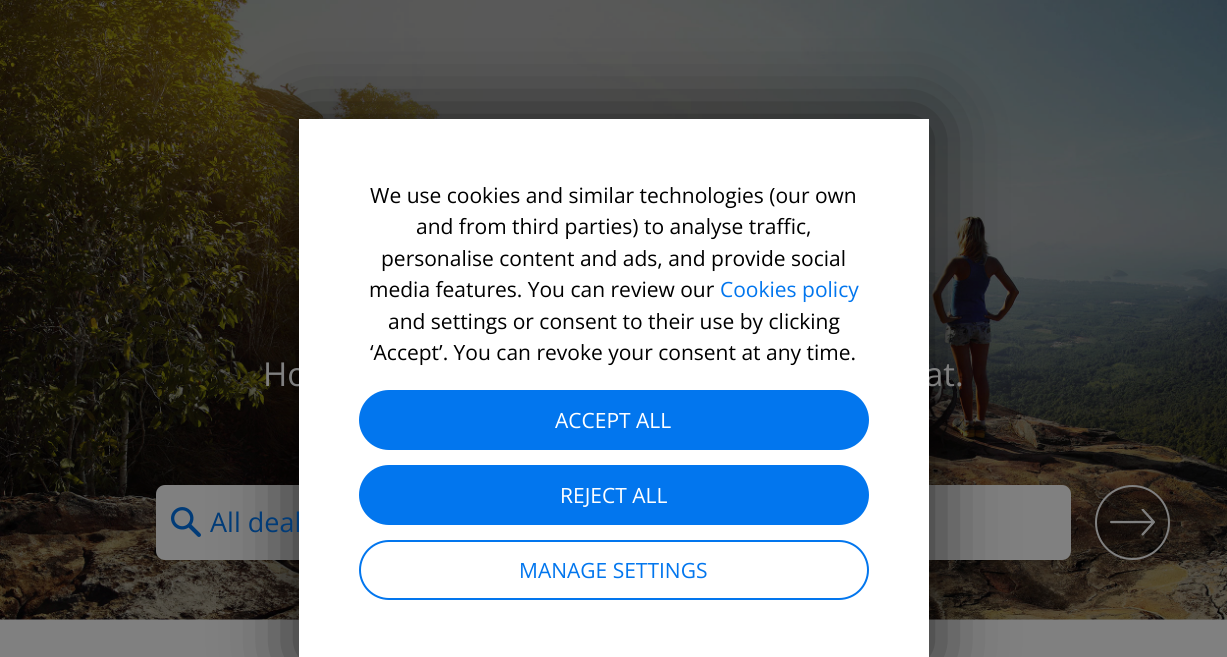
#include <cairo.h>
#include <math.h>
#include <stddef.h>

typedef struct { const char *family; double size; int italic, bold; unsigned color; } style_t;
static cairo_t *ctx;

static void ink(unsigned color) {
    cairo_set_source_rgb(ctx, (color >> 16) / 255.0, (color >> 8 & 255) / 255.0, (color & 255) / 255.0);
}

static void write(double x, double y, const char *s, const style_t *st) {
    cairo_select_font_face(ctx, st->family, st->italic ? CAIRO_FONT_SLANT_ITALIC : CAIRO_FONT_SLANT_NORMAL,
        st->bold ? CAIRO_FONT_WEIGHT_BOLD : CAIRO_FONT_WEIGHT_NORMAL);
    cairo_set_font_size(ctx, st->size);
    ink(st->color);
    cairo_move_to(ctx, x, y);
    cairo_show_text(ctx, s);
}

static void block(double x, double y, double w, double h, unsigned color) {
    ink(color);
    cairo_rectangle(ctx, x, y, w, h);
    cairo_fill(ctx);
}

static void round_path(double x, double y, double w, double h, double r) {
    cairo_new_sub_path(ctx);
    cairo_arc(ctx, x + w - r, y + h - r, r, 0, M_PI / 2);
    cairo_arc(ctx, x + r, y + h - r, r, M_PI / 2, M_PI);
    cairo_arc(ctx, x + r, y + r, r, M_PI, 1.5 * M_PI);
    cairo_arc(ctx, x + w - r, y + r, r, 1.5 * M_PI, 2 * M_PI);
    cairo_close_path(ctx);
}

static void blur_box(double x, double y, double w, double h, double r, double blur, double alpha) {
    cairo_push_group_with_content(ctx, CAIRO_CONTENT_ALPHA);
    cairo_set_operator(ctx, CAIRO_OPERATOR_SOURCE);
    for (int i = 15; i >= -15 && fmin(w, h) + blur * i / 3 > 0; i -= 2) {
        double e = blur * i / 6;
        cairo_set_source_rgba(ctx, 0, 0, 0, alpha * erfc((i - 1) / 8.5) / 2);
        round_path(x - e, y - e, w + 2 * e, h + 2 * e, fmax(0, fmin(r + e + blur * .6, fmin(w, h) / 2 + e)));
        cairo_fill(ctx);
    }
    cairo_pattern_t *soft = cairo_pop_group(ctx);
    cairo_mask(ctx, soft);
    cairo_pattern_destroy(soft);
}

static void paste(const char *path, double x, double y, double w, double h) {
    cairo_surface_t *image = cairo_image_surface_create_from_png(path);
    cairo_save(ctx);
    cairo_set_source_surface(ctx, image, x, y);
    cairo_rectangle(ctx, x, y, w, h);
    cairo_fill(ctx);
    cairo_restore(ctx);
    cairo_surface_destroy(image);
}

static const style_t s1 = {"Open Sans", 33, 0, 0, 0x808080};
static const style_t s2 = {"Open Sans", 21, 0, 0, 0x000000};
static const style_t s3 = {"Open Sans", 21, 0, 0, 0x0276ee};
static const style_t s4 = {"Open Sans", 21, 0, 0, 0xffffff};
static const style_t s5 = {"Open Sans", 27, 0, 0, 0x013b77};

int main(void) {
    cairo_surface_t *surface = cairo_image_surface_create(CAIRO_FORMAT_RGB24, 1227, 657);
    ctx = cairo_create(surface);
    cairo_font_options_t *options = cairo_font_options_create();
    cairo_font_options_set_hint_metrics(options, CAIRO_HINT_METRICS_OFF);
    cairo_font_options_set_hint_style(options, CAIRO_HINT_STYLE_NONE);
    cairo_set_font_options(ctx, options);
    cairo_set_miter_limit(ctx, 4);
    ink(0x808080);
    cairo_paint(ctx);
    block(0, 619, 1227, 1, 0x777777);
    paste("pic1.png", 0, 0, 1227, 620);
    ink(0x000000);
    blur_box(156, 486, 446, 75, 9, 1.5, 0.15);
    ink(0x808080);
    round_path(156, 485, 446, 75, 9);
    cairo_fill(ctx);
    paste("pic2.png", 171, 507, 30, 30);
    ink(0x000000);
    blur_box(626, 486, 445, 75, 9, 1.5, 0.15);
    ink(0x808080);
    round_path(626, 485, 445, 75, 9);
    cairo_fill(ctx);
    ink(0x000000);
    blur_box(299, 120, 630, 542, 0, 37.5, 0.7);
    write(263, 386, "Ho", &s1);
    write(925, 386, "at.", &s1);
    block(299, 119, 630, 538, 0xffffff);
    write(370, 203, "We use cookies and similar technologies (our own", &s2);
    write(416, 234, "and from third parties) to analyse traffic,", &s2);
    write(381, 266, "personalise content and ads, and provide social", &s2);
    write(369, 297, "media features. You can review our", &s2);
    write(720, 297, "Cookies policy", &s3);
    write(388, 329, "and settings or consent to their use by clicking", &s2);
    write(370, 360, "‘Accept’. You can revoke your consent at any time.", &s2);
    ink(0x0276ee);
    round_path(359, 390, 510, 60, 30);
    cairo_fill(ctx);
    write(555, 428, "ACCEPT ALL", &s4);
    ink(0x0276ee);
    round_path(359, 465, 510, 60, 30);
    cairo_fill(ctx);
    write(560, 503, "REJECT ALL", &s4);
    round_path(360, 541, 508, 58, 29);
    ink(0x0276ee);
    cairo_stroke(ctx);
    write(519, 578, "MANAGE SETTINGS", &s3);
    write(210, 532, "All deal", &s5);
    cairo_set_source_rgba(ctx, 0, 0, 0, 0.25);
    cairo_new_path(ctx);
    cairo_arc(ctx, 1132.5, 522.5, 36.5, 0, 2 * M_PI);
    cairo_fill_preserve(ctx);
    ink(0x808080);
    cairo_stroke(ctx);
    paste("pic3.png", 1110, 509, 45, 27);
    cairo_surface_write_to_png(surface, "screenshot.png");
    cairo_font_options_destroy(options);
    cairo_destroy(ctx);
    cairo_surface_destroy(surface);
    return 0;
}
